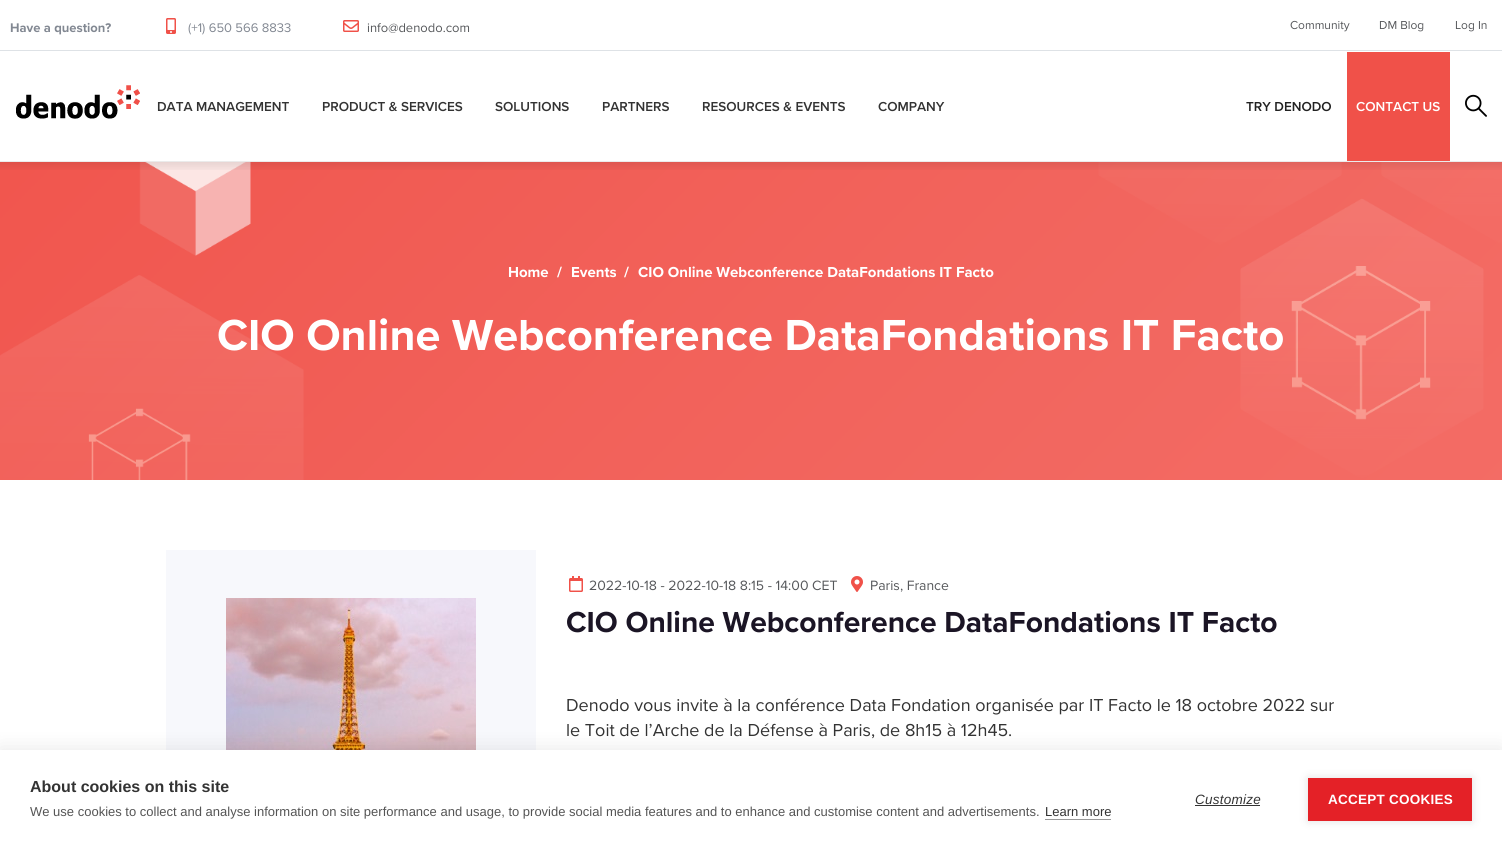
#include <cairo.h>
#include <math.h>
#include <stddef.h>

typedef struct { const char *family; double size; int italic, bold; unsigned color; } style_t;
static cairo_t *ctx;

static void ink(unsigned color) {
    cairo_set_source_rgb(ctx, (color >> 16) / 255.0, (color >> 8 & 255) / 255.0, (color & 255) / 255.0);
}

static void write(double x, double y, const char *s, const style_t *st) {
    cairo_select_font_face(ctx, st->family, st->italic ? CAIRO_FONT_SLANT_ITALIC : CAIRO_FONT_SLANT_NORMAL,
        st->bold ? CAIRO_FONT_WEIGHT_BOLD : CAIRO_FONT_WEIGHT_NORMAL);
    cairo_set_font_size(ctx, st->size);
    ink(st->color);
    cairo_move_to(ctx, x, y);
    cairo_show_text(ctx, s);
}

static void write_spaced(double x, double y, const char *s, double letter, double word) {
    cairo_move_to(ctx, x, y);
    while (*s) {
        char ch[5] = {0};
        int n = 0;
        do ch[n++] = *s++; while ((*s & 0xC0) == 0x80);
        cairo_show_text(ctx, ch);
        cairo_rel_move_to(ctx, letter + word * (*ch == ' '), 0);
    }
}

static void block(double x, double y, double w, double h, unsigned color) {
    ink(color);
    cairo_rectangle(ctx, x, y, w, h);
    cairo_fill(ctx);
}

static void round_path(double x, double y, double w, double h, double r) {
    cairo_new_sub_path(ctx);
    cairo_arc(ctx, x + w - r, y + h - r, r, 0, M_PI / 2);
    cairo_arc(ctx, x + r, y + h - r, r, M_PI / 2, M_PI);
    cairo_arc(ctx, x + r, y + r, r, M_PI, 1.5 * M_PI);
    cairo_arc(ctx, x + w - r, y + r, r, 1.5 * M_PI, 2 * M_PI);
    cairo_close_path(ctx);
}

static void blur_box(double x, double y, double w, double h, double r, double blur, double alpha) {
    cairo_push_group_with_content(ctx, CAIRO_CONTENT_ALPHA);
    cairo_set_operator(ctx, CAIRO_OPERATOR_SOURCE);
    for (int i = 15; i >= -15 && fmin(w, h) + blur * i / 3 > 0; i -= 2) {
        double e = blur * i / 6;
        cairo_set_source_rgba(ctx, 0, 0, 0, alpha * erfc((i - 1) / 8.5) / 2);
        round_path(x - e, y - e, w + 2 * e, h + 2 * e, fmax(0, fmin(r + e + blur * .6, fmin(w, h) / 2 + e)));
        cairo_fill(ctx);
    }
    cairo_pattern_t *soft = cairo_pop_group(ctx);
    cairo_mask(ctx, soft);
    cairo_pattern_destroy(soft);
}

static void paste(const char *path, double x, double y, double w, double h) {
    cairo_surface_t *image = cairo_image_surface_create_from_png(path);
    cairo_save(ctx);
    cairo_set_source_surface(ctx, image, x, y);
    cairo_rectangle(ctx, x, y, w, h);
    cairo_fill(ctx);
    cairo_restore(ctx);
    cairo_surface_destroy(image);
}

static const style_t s1 = {"Proxima Nova", 13, 0, 1, 0x828892};
static const style_t s2 = {"Proxima Nova", 13, 0, 0, 0x828892};
static const style_t s3 = {"Proxima Nova", 13, 0, 0, 0x56585b};
static const style_t s4 = {"Proxima Nova", 12, 0, 0, 0x56585b};
static const style_t s5 = {"Proxima Nova SemiBold", 13.5, 0, 0, 0x333333};
static const style_t s6 = {"Proxima Nova SemiBold", 13.5, 0, 0, 0x222222};
static const style_t s7 = {"Proxima Nova SemiBold", 13.5, 0, 0, 0xffffff};
static const style_t s8 = {"Proxima Nova", 15, 0, 1, 0xffffff};
static const style_t s9 = {"Proxima Nova", 45, 0, 1, 0xffffff};
static const style_t s10 = {"Proxima Nova", 14, 0, 0, 0x56585b};
static const style_t s11 = {"Proxima Nova", 30, 0, 1, 0x1b1525};
static const style_t s12 = {"Proxima Nova", 18, 0, 0, 0x333333};
static const style_t s13 = {"Liberation Sans", 16, 0, 1, 0x333333};
static const style_t s14 = {"Liberation Sans", 13, 0, 0, 0x555555};
static const style_t s15 = {"Liberation Sans", 13, 0, 0, 0x333333};

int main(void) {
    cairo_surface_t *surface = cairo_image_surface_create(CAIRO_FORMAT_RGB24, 1502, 848);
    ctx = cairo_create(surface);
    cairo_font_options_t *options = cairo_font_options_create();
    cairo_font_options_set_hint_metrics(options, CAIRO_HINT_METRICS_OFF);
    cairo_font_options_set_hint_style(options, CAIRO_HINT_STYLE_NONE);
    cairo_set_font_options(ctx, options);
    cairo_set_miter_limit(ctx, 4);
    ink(0xffffff);
    cairo_paint(ctx);
    paste("pic5.png", 0, 162, 1502, 318);
    cairo_save(ctx);
    cairo_rectangle(ctx, 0, 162, 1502, 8);
    cairo_clip(ctx);
    ink(0x000000);
    blur_box(-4, -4, 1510, 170, 0, 5, 0.1);
    cairo_restore(ctx);
    block(0, 161, 1502, 1, 0xebebeb);
    block(0, 50, 1502, 1, 0xdee2e6);
    write(10, 32, "Have a question?", &s1);
    paste("pic1.png", 166, 18, 10, 16);
    write(188, 32, "(+1) 650 566 8833", &s2);
    paste("pic2.png", 343, 20, 16, 12);
    write(367, 32, "info@denodo.com", &s3);
    write(1290, 29, "Community", &s4);
    write(1379, 29, "DM Blog", &s4);
    write(1455, 29, "Log In", &s4);
    paste("pic3.png", 16, 85, 124, 34);
    write(157, 111, "DATA MANAGEMENT", &s5);
    write(322, 111, "PRODUCT & SERVICES", &s5);
    write(495, 111, "SOLUTIONS", &s5);
    write(602, 111, "PARTNERS", &s5);
    write(702, 111, "RESOURCES & EVENTS", &s5);
    write(878, 111, "COMPANY", &s5);
    write(1246, 111, "TRY DENODO", &s6);
    block(1347, 52, 103, 109, 0xf05149);
    write(1356, 111, "CONTACT US", &s7);
    paste("pic4.png", 1465, 94, 22, 23);
    write(508, 277, "Home", &s8);
    write(557, 277, "/", &s8);
    write(571, 277, "Events", &s8);
    write(624, 277, "/", &s8);
    write(638, 277, "CIO Online Webconference DataFondations IT Facto", &s8);
    write(217, 350, "CIO Online Webconference DataFondations IT Facto", &s9);
    block(166, 550, 370, 200, 0xf7f8fc);
    paste("pic6.png", 226, 598, 250, 152);
    paste("pic7.png", 569, 576, 14, 16);
    write(589, 590, "2022-10-18 - 2022-10-18 8:15 - 14:00 CET", &s10);
    paste("pic8.png", 851, 576, 12, 16);
    write(870, 590, "Paris, France", &s10);
    write(566, 632, "CIO Online Webconference DataFondations IT Facto", &s11);
    write(566, 711, "Denodo vous invite à la conférence Data Fondation organisée par IT Facto le 18 octobre 2022 sur", &s12);
    write(566, 736, "le Toit de l’Arche de la Défense à Paris, de 8h15 à 12h45.", &s12);
    ink(0x000000);
    blur_box(0, 750, 1502, 98, 0, 10, 0.1);
    block(0, 750, 1502, 98, 0xffffff);
    write(30, 792, "About cookies on this site", &s13);
    write(30, 816, "We use cookies to collect and analyse information on site performance and usage, to provide social media features and to enhance and customise content and advertisements.", &s14);
    write(1045, 816, "Learn more", &s15);
    block(1045, 819, 66, 1, 0x999999);
    cairo_select_font_face(ctx, "Liberation Sans", CAIRO_FONT_SLANT_ITALIC, CAIRO_FONT_WEIGHT_NORMAL);
    cairo_set_font_size(ctx, 13.5);
    ink(0x333333);
    write_spaced(1195, 804, "Customize", 0.25, 0);
    block(1195, 805, 65, 1, 0x333333);
    ink(0x000000);
    blur_box(1308, 778, 164, 43, 0, 5, 0.12);
    block(1308, 778, 164, 43, 0xe42127);
    cairo_select_font_face(ctx, "Liberation Sans", CAIRO_FONT_SLANT_NORMAL, CAIRO_FONT_WEIGHT_BOLD);
    ink(0xffffff);
    write_spaced(1328, 804, "ACCEPT COOKIES", 0.25, 0);
    cairo_surface_write_to_png(surface, "screenshot.png");
    cairo_font_options_destroy(options);
    cairo_destroy(ctx);
    cairo_surface_destroy(surface);
    return 0;
}
